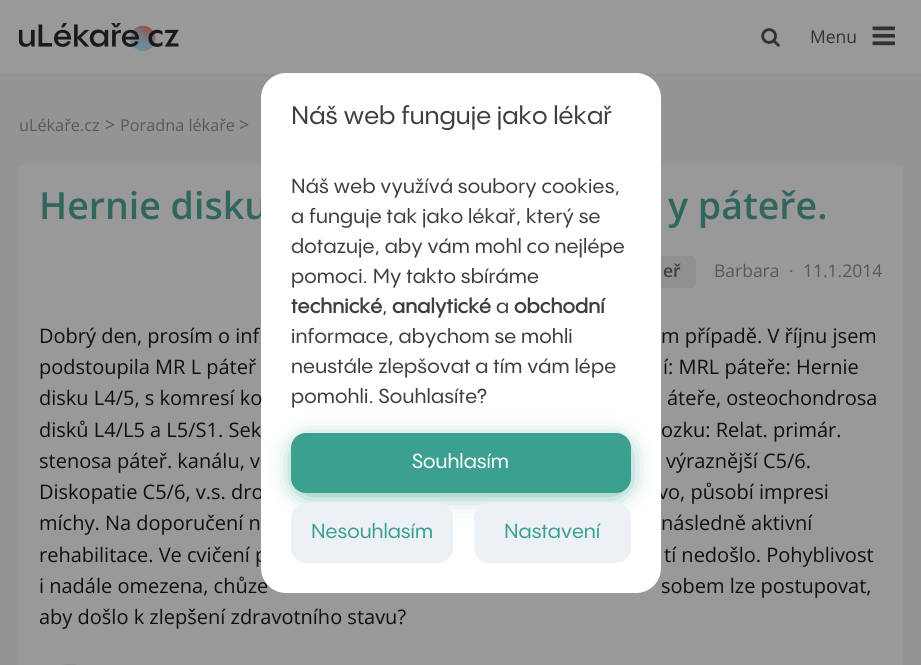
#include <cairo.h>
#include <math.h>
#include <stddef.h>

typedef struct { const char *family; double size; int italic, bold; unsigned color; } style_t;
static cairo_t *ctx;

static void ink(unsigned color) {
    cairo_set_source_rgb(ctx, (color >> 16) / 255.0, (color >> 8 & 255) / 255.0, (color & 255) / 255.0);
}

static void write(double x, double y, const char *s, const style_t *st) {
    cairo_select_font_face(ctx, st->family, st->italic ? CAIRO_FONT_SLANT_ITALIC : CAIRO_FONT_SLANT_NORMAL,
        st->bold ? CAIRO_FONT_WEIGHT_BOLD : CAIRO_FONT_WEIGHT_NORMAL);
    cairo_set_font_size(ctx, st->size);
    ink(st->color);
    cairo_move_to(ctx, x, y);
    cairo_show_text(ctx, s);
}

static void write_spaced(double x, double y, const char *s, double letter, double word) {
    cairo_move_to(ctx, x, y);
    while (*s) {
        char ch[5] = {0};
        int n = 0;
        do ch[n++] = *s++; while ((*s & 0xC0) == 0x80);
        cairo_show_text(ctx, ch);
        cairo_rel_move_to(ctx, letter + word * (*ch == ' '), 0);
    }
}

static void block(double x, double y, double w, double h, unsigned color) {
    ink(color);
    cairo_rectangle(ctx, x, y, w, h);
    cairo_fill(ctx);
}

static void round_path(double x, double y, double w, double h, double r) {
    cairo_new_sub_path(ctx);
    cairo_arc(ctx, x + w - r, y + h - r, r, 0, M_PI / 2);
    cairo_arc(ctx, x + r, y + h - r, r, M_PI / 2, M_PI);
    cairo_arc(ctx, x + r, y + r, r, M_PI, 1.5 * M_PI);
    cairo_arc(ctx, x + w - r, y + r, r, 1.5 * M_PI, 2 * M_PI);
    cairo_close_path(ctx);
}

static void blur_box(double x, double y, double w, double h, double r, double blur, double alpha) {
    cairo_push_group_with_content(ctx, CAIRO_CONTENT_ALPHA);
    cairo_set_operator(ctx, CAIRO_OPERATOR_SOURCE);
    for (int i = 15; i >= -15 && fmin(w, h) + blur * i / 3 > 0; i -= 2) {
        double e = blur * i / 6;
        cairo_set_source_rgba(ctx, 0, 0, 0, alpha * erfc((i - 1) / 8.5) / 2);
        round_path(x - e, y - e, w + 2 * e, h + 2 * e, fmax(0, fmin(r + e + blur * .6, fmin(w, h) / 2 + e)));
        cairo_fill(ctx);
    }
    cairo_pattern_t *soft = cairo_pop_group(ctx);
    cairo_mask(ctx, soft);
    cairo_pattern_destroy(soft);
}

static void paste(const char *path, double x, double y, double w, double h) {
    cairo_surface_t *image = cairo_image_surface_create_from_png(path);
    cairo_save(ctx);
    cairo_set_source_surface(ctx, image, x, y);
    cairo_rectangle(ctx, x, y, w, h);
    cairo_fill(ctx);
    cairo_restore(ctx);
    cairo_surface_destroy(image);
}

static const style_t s1 = {"Open Sans", 17.5, 0, 0, 0x323232};
static const style_t s2 = {"Open Sans SemiBold", 37.5, 0, 0, 0x30665d};
static const style_t s3 = {"Open Sans", 20, 0, 0, 0x0f0f0f};
static const style_t s4 = {"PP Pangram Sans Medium", 25, 0, 0, 0x3e3e3e};
static const style_t s5 = {"PP Pangram Sans Medium", 20, 0, 0, 0xffffff};
static const style_t s6 = {"PP Pangram Sans Medium", 20, 0, 0, 0x3ca091};
static const style_t s7 = {"Open Sans", 16.25, 0, 0, 0x585858};
static const style_t s8 = {"Open Sans", 18, 0, 0, 0x585858};
static const style_t s9 = {"Open Sans SemiBold", 17.5, 0, 0, 0x3e3e3e};
static const style_t s10 = {"Open Sans", 17.5, 0, 0, 0x585858};

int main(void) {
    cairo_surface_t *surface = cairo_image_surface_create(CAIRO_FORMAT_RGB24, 921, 665);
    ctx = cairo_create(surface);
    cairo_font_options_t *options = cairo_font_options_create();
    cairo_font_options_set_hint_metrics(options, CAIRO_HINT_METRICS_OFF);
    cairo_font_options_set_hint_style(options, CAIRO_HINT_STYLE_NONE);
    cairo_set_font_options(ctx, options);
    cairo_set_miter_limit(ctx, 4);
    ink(0x929496);
    cairo_paint(ctx);
    block(0, 0, 921, 74, 0x999999);
    block(0, 74, 921, 1, 0x8f8f8f);
    paste("pic1.png", 19, 23, 160, 28);
    paste("pic2.png", 761, 28, 19, 19);
    write(810, 43, "Menu", &s1);
    paste("pic3.png", 872, 26, 23, 20);
    block(19, 165, 884, 500, 0x999999);
    write(39, 219, "Hernie disku", &s2);
    ink(0x909090);
    round_path(569, 256, 127, 32, 4);
    cairo_fill(ctx);
    write(39, 499, "Diskopatie C5/6, v.s. dro", &s3);
    write(658, 499, "vo, působí impresi", &s3);
    write(39, 562, "rehabilitace. Ve cvičení p", &s3);
    write(39, 593, "i nadále omezena, chůze", &s3);
    ink(0xffffff);
    round_path(261, 73, 400, 520, 25);
    cairo_fill(ctx);
    write(291, 124, "Náš web funguje jako lékař", &s4);
    cairo_set_font_size(ctx, 20);
    write_spaced(291, 193, "Náš web využívá soubory cookies,", 0.15, 0);
    write_spaced(291, 223, "a funguje tak jako lékař, který se", 0.15, 0);
    write_spaced(291, 253, "dotazuje, aby vám mohl co nejlépe", 0.15, 0);
    write_spaced(291, 283, "pomoci. My takto sbíráme", 0.15, 0);
    cairo_select_font_face(ctx, "PP Pangram Sans", CAIRO_FONT_SLANT_NORMAL, CAIRO_FONT_WEIGHT_BOLD);
    write_spaced(291, 313, "technické", 0.15, 0);
    cairo_select_font_face(ctx, "PP Pangram Sans Medium", CAIRO_FONT_SLANT_NORMAL, CAIRO_FONT_WEIGHT_NORMAL);
    write_spaced(382, 313, ",", 0.15, 0);
    cairo_select_font_face(ctx, "PP Pangram Sans", CAIRO_FONT_SLANT_NORMAL, CAIRO_FONT_WEIGHT_BOLD);
    write_spaced(392, 313, "analytické", 0.15, 0);
    cairo_select_font_face(ctx, "PP Pangram Sans Medium", CAIRO_FONT_SLANT_NORMAL, CAIRO_FONT_WEIGHT_NORMAL);
    write_spaced(496, 313, "a", 0.15, 0);
    cairo_select_font_face(ctx, "PP Pangram Sans", CAIRO_FONT_SLANT_NORMAL, CAIRO_FONT_WEIGHT_BOLD);
    write_spaced(514, 313, "obchodní", 0.15, 0);
    cairo_select_font_face(ctx, "PP Pangram Sans Medium", CAIRO_FONT_SLANT_NORMAL, CAIRO_FONT_WEIGHT_NORMAL);
    write_spaced(291, 343, "informace, abychom se mohli", 0.15, 0);
    write_spaced(291, 373, "neustále zlepšovat a tím vám lépe", 0.15, 0);
    write_spaced(291, 403, "pomohli. Souhlasíte?", 0.15, 0);
    ink(0x3ca091);
    blur_box(298, 444, 327, 47, 9, 12.5, 1);
    ink(0x3ca091);
    round_path(291, 433, 340, 60, 15);
    cairo_fill(ctx);
    write(412, 468, "Souhlasím", &s5);
    ink(0xecf1f6);
    round_path(291, 503, 162, 60, 15);
    cairo_fill(ctx);
    write(311, 538, "Nesouhlasím", &s6);
    ink(0xecf1f6);
    round_path(474, 503, 157, 60, 15);
    cairo_fill(ctx);
    write(504, 538, "Nastavení", &s6);
    write(19, 131, "uLékaře.cz", &s7);
    write(105, 131, ">", &s8);
    write(120, 131, "Poradna lékaře", &s7);
    write(239, 131, ">", &s8);
    write(668, 219, "y páteře.", &s2);
    write(663, 277, "eř", &s9);
    write(714, 277, "Barbara", &s10);
    write(789, 272, ".", &s10);
    write(803, 277, "11.1.2014", &s10);
    write(39, 343, "Dobrý den, prosím o inf", &s3);
    write(661, 343, "m případě. V říjnu jsem", &s3);
    write(39, 374, "podstoupila MR L páteř", &s3);
    write(663, 374, "í: MRL páteře: Hernie", &s3);
    write(39, 405, "disku L4/5, s komresí ko", &s3);
    write(667, 405, "áteře, osteochondrosa", &s3);
    write(39, 437, "disků L4/L5 a L5/S1. Sek", &s3);
    write(661, 437, "ozku: Relat. primár.", &s3);
    write(39, 468, "stenosa páteř. kanálu, v", &s3);
    write(666, 468, "výraznější C5/6.", &s3);
    write(39, 530, "míchy. Na doporučení n", &s3);
    write(661, 530, "následně aktivní", &s3);
    write(664, 562, "tí nedošlo. Pohyblivost", &s3);
    write(661, 593, "sobem lze postupovat,", &s3);
    write(39, 624, "aby došlo k zlepšení zdravotního stavu?", &s3);
    paste("pic4.png", 63, 664, 14, 1);
    cairo_surface_write_to_png(surface, "screenshot.png");
    cairo_font_options_destroy(options);
    cairo_destroy(ctx);
    cairo_surface_destroy(surface);
    return 0;
}
